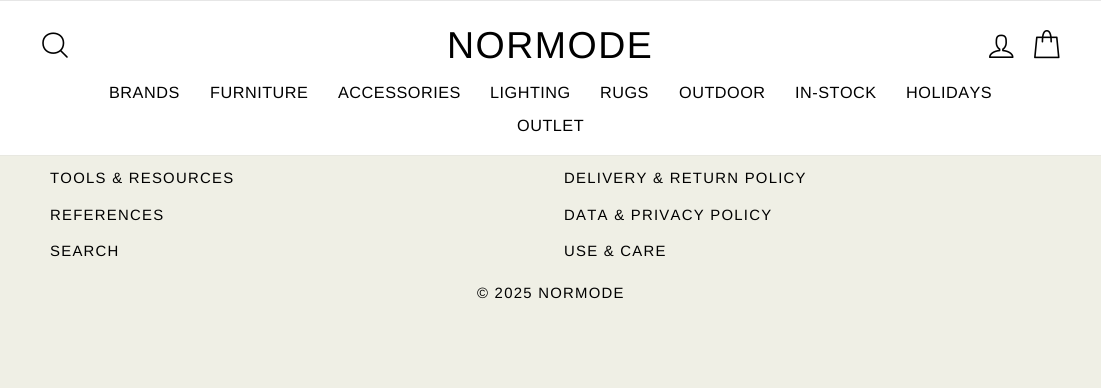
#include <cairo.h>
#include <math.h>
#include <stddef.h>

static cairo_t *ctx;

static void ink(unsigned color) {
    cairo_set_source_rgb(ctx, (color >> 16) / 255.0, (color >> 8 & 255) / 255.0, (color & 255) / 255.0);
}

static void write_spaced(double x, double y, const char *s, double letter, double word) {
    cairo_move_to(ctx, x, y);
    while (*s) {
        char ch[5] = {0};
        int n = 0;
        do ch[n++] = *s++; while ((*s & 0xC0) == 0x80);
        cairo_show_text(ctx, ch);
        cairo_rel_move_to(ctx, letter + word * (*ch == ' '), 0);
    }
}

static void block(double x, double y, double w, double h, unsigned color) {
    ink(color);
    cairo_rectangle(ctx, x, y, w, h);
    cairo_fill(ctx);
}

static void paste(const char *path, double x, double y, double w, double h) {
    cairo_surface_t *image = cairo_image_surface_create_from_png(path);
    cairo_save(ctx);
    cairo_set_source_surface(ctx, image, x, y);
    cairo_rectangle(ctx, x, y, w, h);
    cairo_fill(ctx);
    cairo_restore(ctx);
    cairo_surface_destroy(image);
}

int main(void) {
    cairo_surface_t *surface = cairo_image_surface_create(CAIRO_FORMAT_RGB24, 1101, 388);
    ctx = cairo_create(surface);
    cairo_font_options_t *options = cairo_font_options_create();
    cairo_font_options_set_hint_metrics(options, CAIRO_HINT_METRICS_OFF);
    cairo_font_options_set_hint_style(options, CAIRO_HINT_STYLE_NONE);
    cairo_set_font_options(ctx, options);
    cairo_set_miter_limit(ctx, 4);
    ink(0xefefe5);
    cairo_paint(ctx);
    block(0, 1, 1101, 154, 0xffffff);
    block(0, 0, 1101, 1, 0xe6e6e6);
    block(0, 155, 1101, 1, 0xe8e8e1);
    cairo_new_path(ctx);
    cairo_move_to(ctx, 63.5, 43);
    cairo_curve_to(ctx, 63.5, 56.5, 43, 56.5, 43, 43);
    cairo_curve_to(ctx, 43, 30, 63.5, 30, 63.5, 43);
    cairo_close_path(ctx);
    cairo_move_to(ctx, 67, 57);
    cairo_line_to(ctx, 60.5, 50.5);
    ink(0x000000);
    cairo_set_line_width(ctx, 1.6);
    cairo_set_line_cap(ctx, CAIRO_LINE_CAP_ROUND);
    cairo_set_line_join(ctx, CAIRO_LINE_JOIN_ROUND);
    cairo_stroke(ctx);
    cairo_select_font_face(ctx, "Liberation Sans", CAIRO_FONT_SLANT_NORMAL, CAIRO_FONT_WEIGHT_NORMAL);
    cairo_set_font_size(ctx, 37.5);
    write_spaced(447, 58, "NORMODE", 1.5, 0);
    paste("pic1.png", 989, 34, 25, 24);
    paste("pic2.png", 1034, 30, 26, 29);
    cairo_set_font_size(ctx, 16.25);
    write_spaced(109, 98, "BRANDS", 0.5, 0);
    write_spaced(210, 98, "FURNITURE", 0.5, 0);
    write_spaced(338, 98, "ACCESSORIES", 0.5, 0);
    write_spaced(490, 98, "LIGHTING", 0.5, 0);
    write_spaced(600, 98, "RUGS", 0.5, 0);
    write_spaced(679, 98, "OUTDOOR", 0.5, 0);
    write_spaced(795, 98, "IN-STOCK", 0.5, 0);
    write_spaced(906, 98, "HOLIDAYS", 0.5, 0);
    write_spaced(517, 131, "OUTLET", 0.5, 0);
    cairo_set_font_size(ctx, 14.9);
    write_spaced(50, 183, "TOOLS & RESOURCES", 1.25, 0);
    write_spaced(50, 220, "REFERENCES", 1.25, 0);
    write_spaced(50, 256, "SEARCH", 1.25, 0);
    write_spaced(564, 183, "DELIVERY & RETURN POLICY", 1.25, 0);
    write_spaced(564, 220, "DATA & PRIVACY POLICY", 1.25, 0);
    write_spaced(564, 256, "USE & CARE", 1.25, 0);
    write_spaced(477, 298, "© 2025 NORMODE", 1.25, 0);
    cairo_surface_write_to_png(surface, "screenshot.png");
    cairo_font_options_destroy(options);
    cairo_destroy(ctx);
    cairo_surface_destroy(surface);
    return 0;
}
